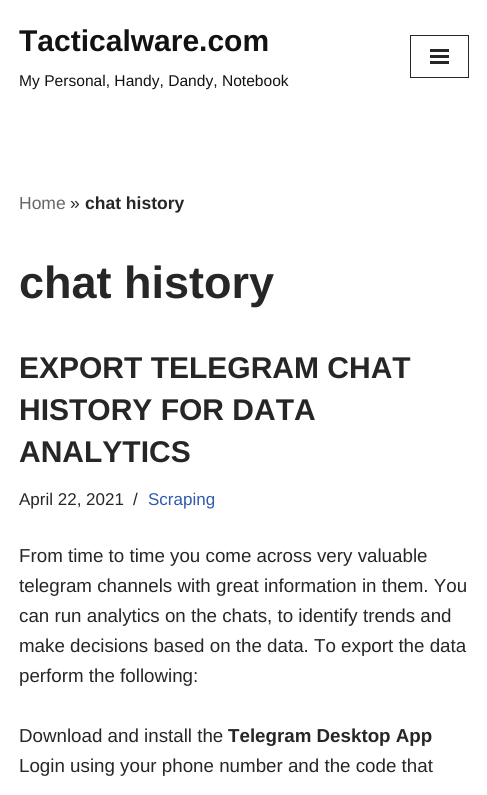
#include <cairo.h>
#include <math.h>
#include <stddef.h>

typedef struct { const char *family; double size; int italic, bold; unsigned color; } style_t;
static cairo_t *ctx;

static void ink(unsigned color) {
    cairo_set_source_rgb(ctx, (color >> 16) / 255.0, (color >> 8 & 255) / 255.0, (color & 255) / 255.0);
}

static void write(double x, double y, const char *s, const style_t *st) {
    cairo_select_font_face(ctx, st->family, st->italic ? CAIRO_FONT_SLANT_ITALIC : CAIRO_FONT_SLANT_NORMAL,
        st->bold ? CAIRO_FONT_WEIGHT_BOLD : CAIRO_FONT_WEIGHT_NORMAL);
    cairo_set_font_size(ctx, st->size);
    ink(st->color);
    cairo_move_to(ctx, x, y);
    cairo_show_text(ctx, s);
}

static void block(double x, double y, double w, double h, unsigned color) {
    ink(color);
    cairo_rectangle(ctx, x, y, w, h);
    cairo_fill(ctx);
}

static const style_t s1 = {"Liberation Sans", 30, 0, 1, 0x121212};
static const style_t s2 = {"Liberation Sans", 15.6, 0, 0, 0x121212};
static const style_t s3 = {"Liberation Sans", 17.5, 0, 0, 0x676767};
static const style_t s4 = {"Liberation Sans", 17.5, 0, 0, 0x272626};
static const style_t s5 = {"Liberation Sans", 17.5, 0, 1, 0x272626};
static const style_t s6 = {"Liberation Sans", 45, 0, 1, 0x272626};
static const style_t s7 = {"Liberation Sans", 30, 0, 1, 0x272626};
static const style_t s8 = {"Liberation Sans", 17, 0, 0, 0x272626};
static const style_t s9 = {"Liberation Sans", 17, 0, 0, 0x2f5aae};
static const style_t s10 = {"Liberation Sans", 18.75, 0, 0, 0x272626};
static const style_t s11 = {"Liberation Sans", 18.75, 0, 1, 0x272626};

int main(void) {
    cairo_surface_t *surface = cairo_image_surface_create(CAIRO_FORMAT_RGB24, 487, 795);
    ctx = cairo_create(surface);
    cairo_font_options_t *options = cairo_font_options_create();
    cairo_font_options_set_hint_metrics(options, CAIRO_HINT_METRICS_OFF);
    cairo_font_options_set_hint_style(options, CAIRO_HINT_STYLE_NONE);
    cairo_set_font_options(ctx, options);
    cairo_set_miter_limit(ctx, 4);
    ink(0xffffff);
    cairo_paint(ctx);
    write(19, 51, "Tacticalware.com", &s1);
    write(19, 86, "My Personal, Handy, Dandy, Notebook", &s2);
    cairo_rectangle(ctx, 410.5, 35.5, 58, 42);
    ink(0x272626);
    cairo_set_line_width(ctx, 1);
    cairo_stroke(ctx);
    block(430, 49, 19, 3, 0x272626);
    block(430, 55, 19, 3, 0x272626);
    block(430, 61, 19, 3, 0x272626);
    write(19, 209, "Home", &s3);
    write(70, 209, "»", &s4);
    write(85, 209, "chat history", &s5);
    write(19, 298, "chat history", &s6);
    write(19, 378, "EXPORT TELEGRAM CHAT", &s7);
    write(19, 420, "HISTORY FOR DATA", &s7);
    write(19, 462, "ANALYTICS", &s7);
    write(19, 505, "April 22, 2021", &s8);
    write(133, 505, "/", &s8);
    write(148, 505, "Scraping", &s9);
    write(19, 562, "From time to time you come across very valuable", &s10);
    write(19, 592, "telegram channels with great information in them. You", &s10);
    write(19, 622, "can run analytics on the chats, to identify trends and", &s10);
    write(19, 652, "make decisions based on the data. To export the data", &s10);
    write(19, 682, "perform the following:", &s10);
    write(19, 742, "Download and install the", &s10);
    write(228, 742, "Telegram Desktop App", &s11);
    write(19, 772, "Login using your phone number and the code that", &s10);
    cairo_surface_write_to_png(surface, "screenshot.png");
    cairo_font_options_destroy(options);
    cairo_destroy(ctx);
    cairo_surface_destroy(surface);
    return 0;
}
